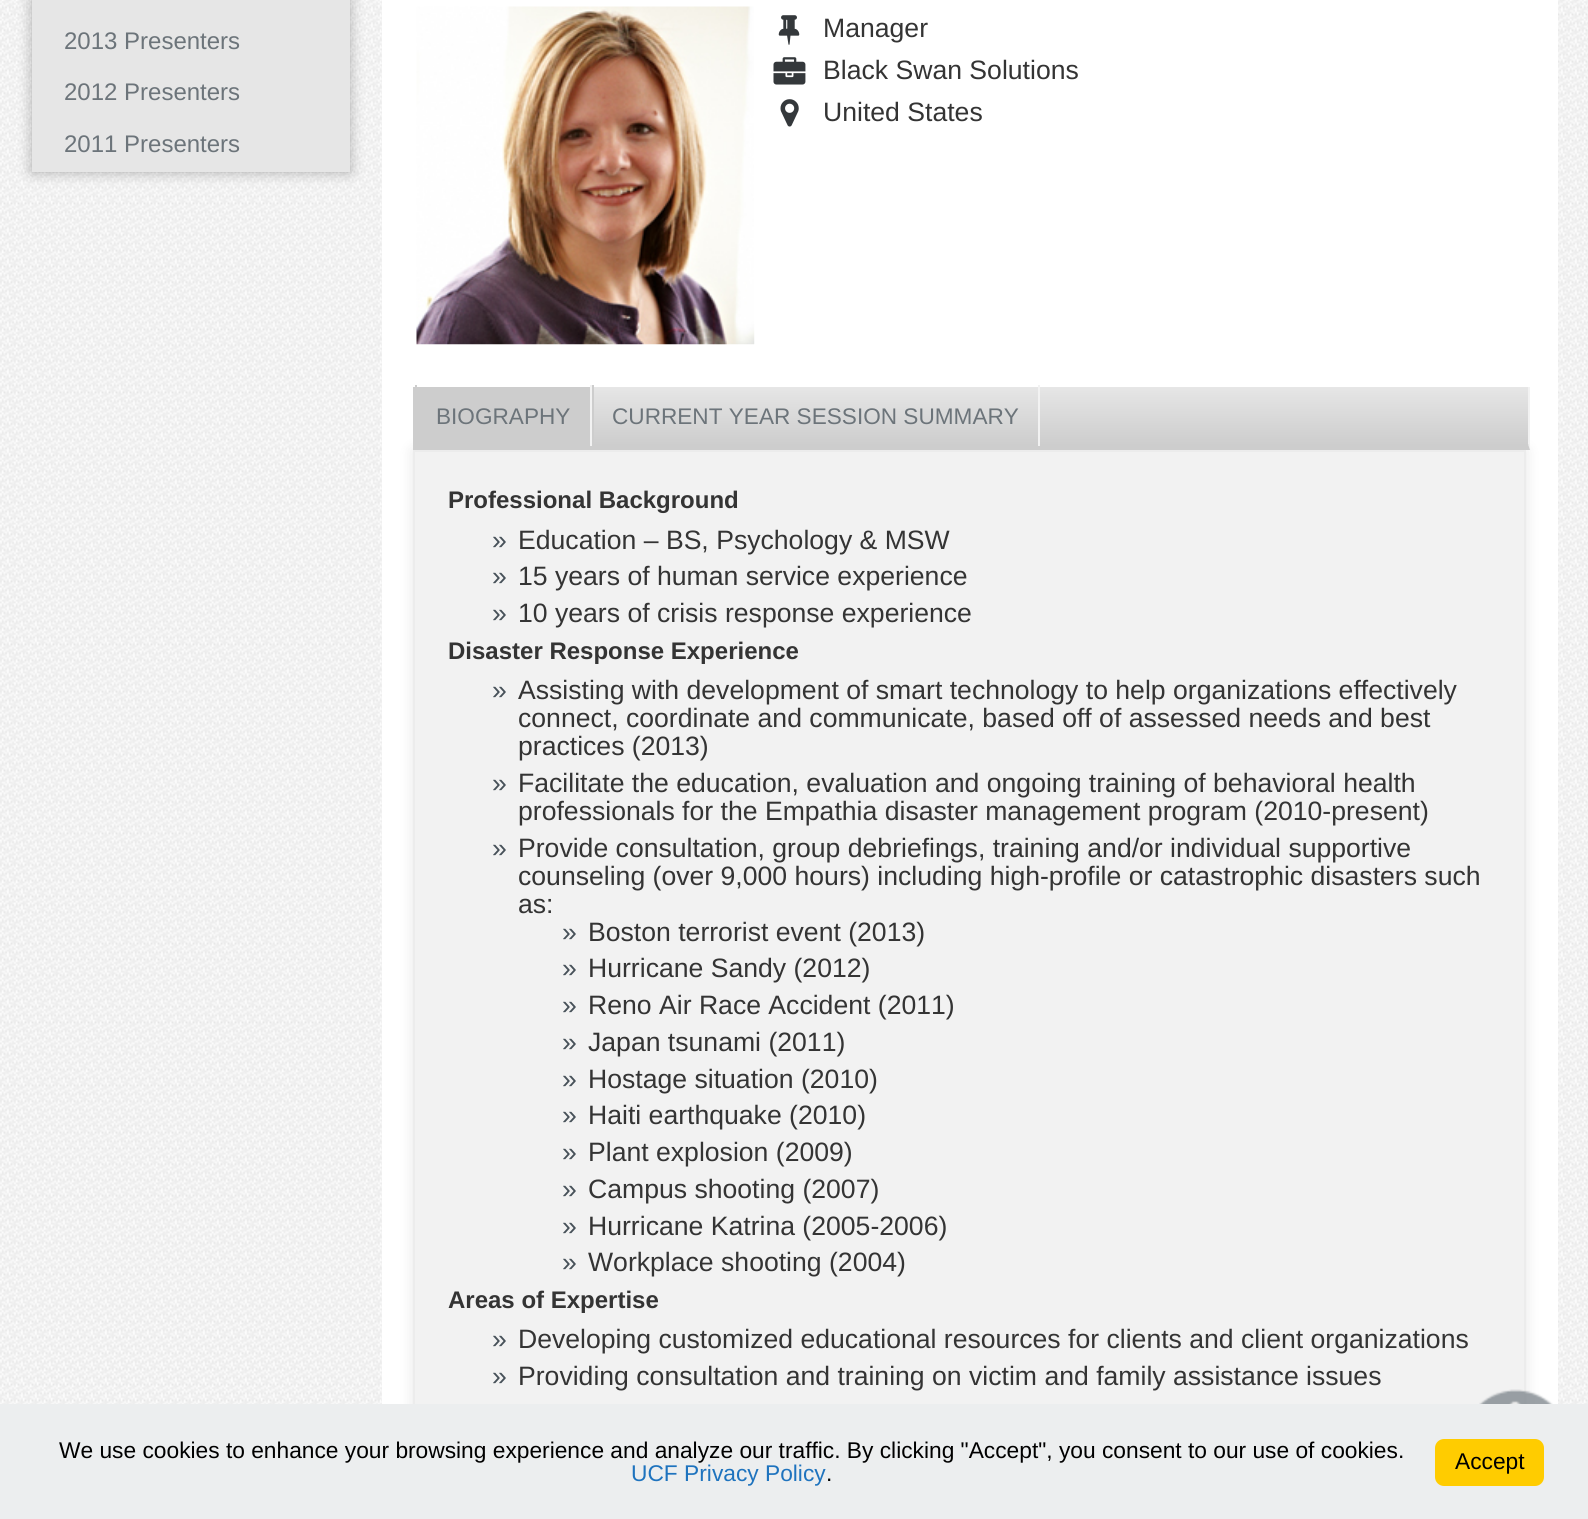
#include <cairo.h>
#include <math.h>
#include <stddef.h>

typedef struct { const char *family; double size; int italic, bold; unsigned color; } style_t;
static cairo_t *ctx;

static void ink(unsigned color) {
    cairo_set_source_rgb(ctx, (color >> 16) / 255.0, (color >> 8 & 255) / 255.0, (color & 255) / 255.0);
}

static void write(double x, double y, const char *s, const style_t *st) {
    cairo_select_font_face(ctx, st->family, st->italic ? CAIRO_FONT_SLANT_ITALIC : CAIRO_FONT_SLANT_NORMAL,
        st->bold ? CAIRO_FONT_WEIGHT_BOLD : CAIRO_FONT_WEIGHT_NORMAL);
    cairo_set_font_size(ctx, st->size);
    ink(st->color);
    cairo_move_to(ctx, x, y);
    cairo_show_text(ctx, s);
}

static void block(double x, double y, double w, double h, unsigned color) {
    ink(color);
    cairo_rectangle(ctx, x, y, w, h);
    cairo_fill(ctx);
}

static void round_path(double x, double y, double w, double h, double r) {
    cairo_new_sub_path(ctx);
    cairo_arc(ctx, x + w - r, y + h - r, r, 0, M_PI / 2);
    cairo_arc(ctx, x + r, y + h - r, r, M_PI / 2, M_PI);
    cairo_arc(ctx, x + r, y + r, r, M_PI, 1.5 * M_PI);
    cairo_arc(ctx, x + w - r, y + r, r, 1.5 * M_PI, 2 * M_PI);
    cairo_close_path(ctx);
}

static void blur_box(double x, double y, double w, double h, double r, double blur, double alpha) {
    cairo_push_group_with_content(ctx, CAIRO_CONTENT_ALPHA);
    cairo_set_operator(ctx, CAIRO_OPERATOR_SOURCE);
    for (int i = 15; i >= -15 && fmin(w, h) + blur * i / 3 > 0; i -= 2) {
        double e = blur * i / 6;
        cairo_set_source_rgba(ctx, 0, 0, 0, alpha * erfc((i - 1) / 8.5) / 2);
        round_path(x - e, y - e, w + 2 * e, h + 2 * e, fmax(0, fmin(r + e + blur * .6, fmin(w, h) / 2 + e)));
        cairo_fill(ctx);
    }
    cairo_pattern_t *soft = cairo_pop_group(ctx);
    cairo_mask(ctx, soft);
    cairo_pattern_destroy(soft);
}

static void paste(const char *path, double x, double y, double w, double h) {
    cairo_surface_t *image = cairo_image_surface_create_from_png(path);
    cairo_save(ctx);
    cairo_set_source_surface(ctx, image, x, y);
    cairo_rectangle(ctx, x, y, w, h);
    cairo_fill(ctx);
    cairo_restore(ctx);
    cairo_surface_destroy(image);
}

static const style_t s1 = {"Liberation Sans", 24, 0, 0, 0x6c747a};
static const style_t s2 = {"Liberation Sans", 26.6, 0, 0, 0x343434};
static const style_t s3 = {"Liberation Sans", 22.6, 0, 0, 0x6c747a};
static const style_t s4 = {"Liberation Sans", 24, 0, 1, 0x343434};
static const style_t s5 = {"Liberation Sans", 26.6, 0, 0, 0x475159};
static const style_t s6 = {"Liberation Sans", 22.75, 0, 0, 0x000000};
static const style_t s7 = {"Liberation Sans", 22.75, 0, 0, 0x1e73be};

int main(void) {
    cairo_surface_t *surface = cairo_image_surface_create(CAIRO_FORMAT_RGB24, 1588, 1519);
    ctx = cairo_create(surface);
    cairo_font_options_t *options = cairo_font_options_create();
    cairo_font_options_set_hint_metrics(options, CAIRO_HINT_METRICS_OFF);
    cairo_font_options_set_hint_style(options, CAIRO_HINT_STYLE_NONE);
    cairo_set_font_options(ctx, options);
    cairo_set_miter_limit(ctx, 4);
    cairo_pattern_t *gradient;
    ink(0xffffff);
    cairo_paint(ctx);
    paste("pic1.png", 0, 0, 1588, 1404);
    ink(0x000000);
    blur_box(32, -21, 318, 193, 0, 7, 0.3);
    block(32, 0, 318, 172, 0xe6e6e6);
    write(64, 49, "2013 Presenters", &s1);
    write(64, 100, "2012 Presenters", &s1);
    write(64, 152, "2011 Presenters", &s1);
    block(382, 0, 1176, 1404, 0xffffff);
    paste("pic2.png", 416, 6, 339, 339);
    paste("pic3.png", 778, 15, 22, 30);
    write(823, 37, "Manager", &s2);
    paste("pic4.png", 773, 57, 33, 28);
    write(823, 79, "Black Swan Solutions", &s2);
    paste("pic5.png", 780, 99, 19, 28);
    write(823, 121, "United States", &s2);
    ink(0x000000);
    blur_box(413, 450, 1113, 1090, 0, 7, 0.1);
    gradient = cairo_pattern_create_linear(415, 445, 415, 387);
    cairo_pattern_add_color_stop_rgba(gradient, 0, 0.804, 0.804, 0.804, 1);
    cairo_pattern_add_color_stop_rgba(gradient, 1, 0.902, 0.902, 0.902, 1);
    cairo_set_source(ctx, gradient);
    cairo_pattern_destroy(gradient);
    cairo_rectangle(ctx, 594, 387, 935, 58);
    cairo_fill(ctx);
    ink(0xf2f2f2);
    cairo_new_path(ctx);
    cairo_move_to(ctx, 1530, 387);
    cairo_line_to(ctx, 1530, 450);
    cairo_line_to(ctx, 1528, 444);
    cairo_line_to(ctx, 1528, 387);
    cairo_close_path(ctx);
    cairo_fill(ctx);
    ink(0xcdcdcd);
    cairo_new_path(ctx);
    cairo_move_to(ctx, 1530, 450);
    cairo_line_to(ctx, 413, 450);
    cairo_line_to(ctx, 415, 444);
    cairo_line_to(ctx, 1528, 444);
    cairo_close_path(ctx);
    cairo_fill(ctx);
    block(413, 387, 2, 63, 0xcdcdcd);
    block(417, 387, 173, 57, 0xcdcdcd);
    write(436, 424, "BIOGRAPHY", &s3);
    block(590, 385, 2, 61, 0xf2f2f2);
    block(415, 385, 2, 61, 0xcdcdcd);
    write(612, 424, "CURRENT YEAR SESSION SUMMARY", &s3);
    block(1038, 385, 2, 61, 0xf2f2f2);
    block(592, 385, 2, 61, 0xcdcdcd);
    block(415, 452, 1109, 952, 0xf2f2f2);
    cairo_rectangle(ctx, 414, 451, 1111, 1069);
    ink(0xececec);
    cairo_stroke(ctx);
    write(448, 508, "Professional Background", &s4);
    write(492, 549, "»", &s5);
    write(518, 549, "Education – BS, Psychology & MSW", &s2);
    write(492, 585, "»", &s5);
    write(518, 585, "15 years of human service experience", &s2);
    write(492, 622, "»", &s5);
    write(518, 622, "10 years of crisis response experience", &s2);
    write(448, 659, "Disaster Response Experience", &s4);
    write(492, 699, "»", &s5);
    write(518, 699, "Assisting with development of smart technology to help organizations effectively", &s2);
    write(518, 727, "connect, coordinate and communicate, based off of assessed needs and best", &s2);
    write(518, 755, "practices (2013)", &s2);
    write(492, 792, "»", &s5);
    write(518, 792, "Facilitate the education, evaluation and ongoing training of behavioral health", &s2);
    write(518, 820, "professionals for the Empathia disaster management program (2010-present)", &s2);
    write(492, 857, "»", &s5);
    write(518, 857, "Provide consultation, group debriefings, training and/or individual supportive", &s2);
    write(518, 885, "counseling (over 9,000 hours) including high-profile or catastrophic disasters such", &s2);
    write(518, 913, "as:", &s2);
    write(562, 941, "»", &s5);
    write(588, 941, "Boston terrorist event (2013)", &s2);
    write(562, 977, "»", &s5);
    write(588, 977, "Hurricane Sandy (2012)", &s2);
    write(562, 1014, "»", &s5);
    write(588, 1014, "Reno Air Race Accident (2011)", &s2);
    write(562, 1051, "»", &s5);
    write(588, 1051, "Japan tsunami (2011)", &s2);
    write(562, 1088, "»", &s5);
    write(588, 1088, "Hostage situation (2010)", &s2);
    write(562, 1124, "»", &s5);
    write(588, 1124, "Haiti earthquake (2010)", &s2);
    write(562, 1161, "»", &s5);
    write(588, 1161, "Plant explosion (2009)", &s2);
    write(562, 1198, "»", &s5);
    write(588, 1198, "Campus shooting (2007)", &s2);
    write(562, 1235, "»", &s5);
    write(588, 1235, "Hurricane Katrina (2005-2006)", &s2);
    write(562, 1271, "»", &s5);
    write(588, 1271, "Workplace shooting (2004)", &s2);
    write(448, 1308, "Areas of Expertise", &s4);
    write(492, 1348, "»", &s5);
    write(518, 1348, "Developing customized educational resources for clients and client organizations", &s2);
    write(492, 1385, "»", &s5);
    write(518, 1385, "Providing consultation and training on victim and family assistance issues", &s2);
    paste("pic6.png", 1479, 1389, 74, 15);
    block(0, 1404, 1588, 115, 0xeceeef);
    write(59, 1458, "We use cookies to enhance your browsing experience and analyze our traffic. By clicking \"Accept\", you consent to our use of cookies.", &s6);
    write(631, 1481, "UCF Privacy Policy", &s7);
    write(826, 1481, ".", &s6);
    ink(0xffcc00);
    round_path(1436, 1440, 107, 45, 8);
    cairo_fill_preserve(ctx);
    cairo_stroke(ctx);
    write(1455, 1469, "Accept", &s6);
    cairo_surface_write_to_png(surface, "screenshot.png");
    cairo_font_options_destroy(options);
    cairo_destroy(ctx);
    cairo_surface_destroy(surface);
    return 0;
}
